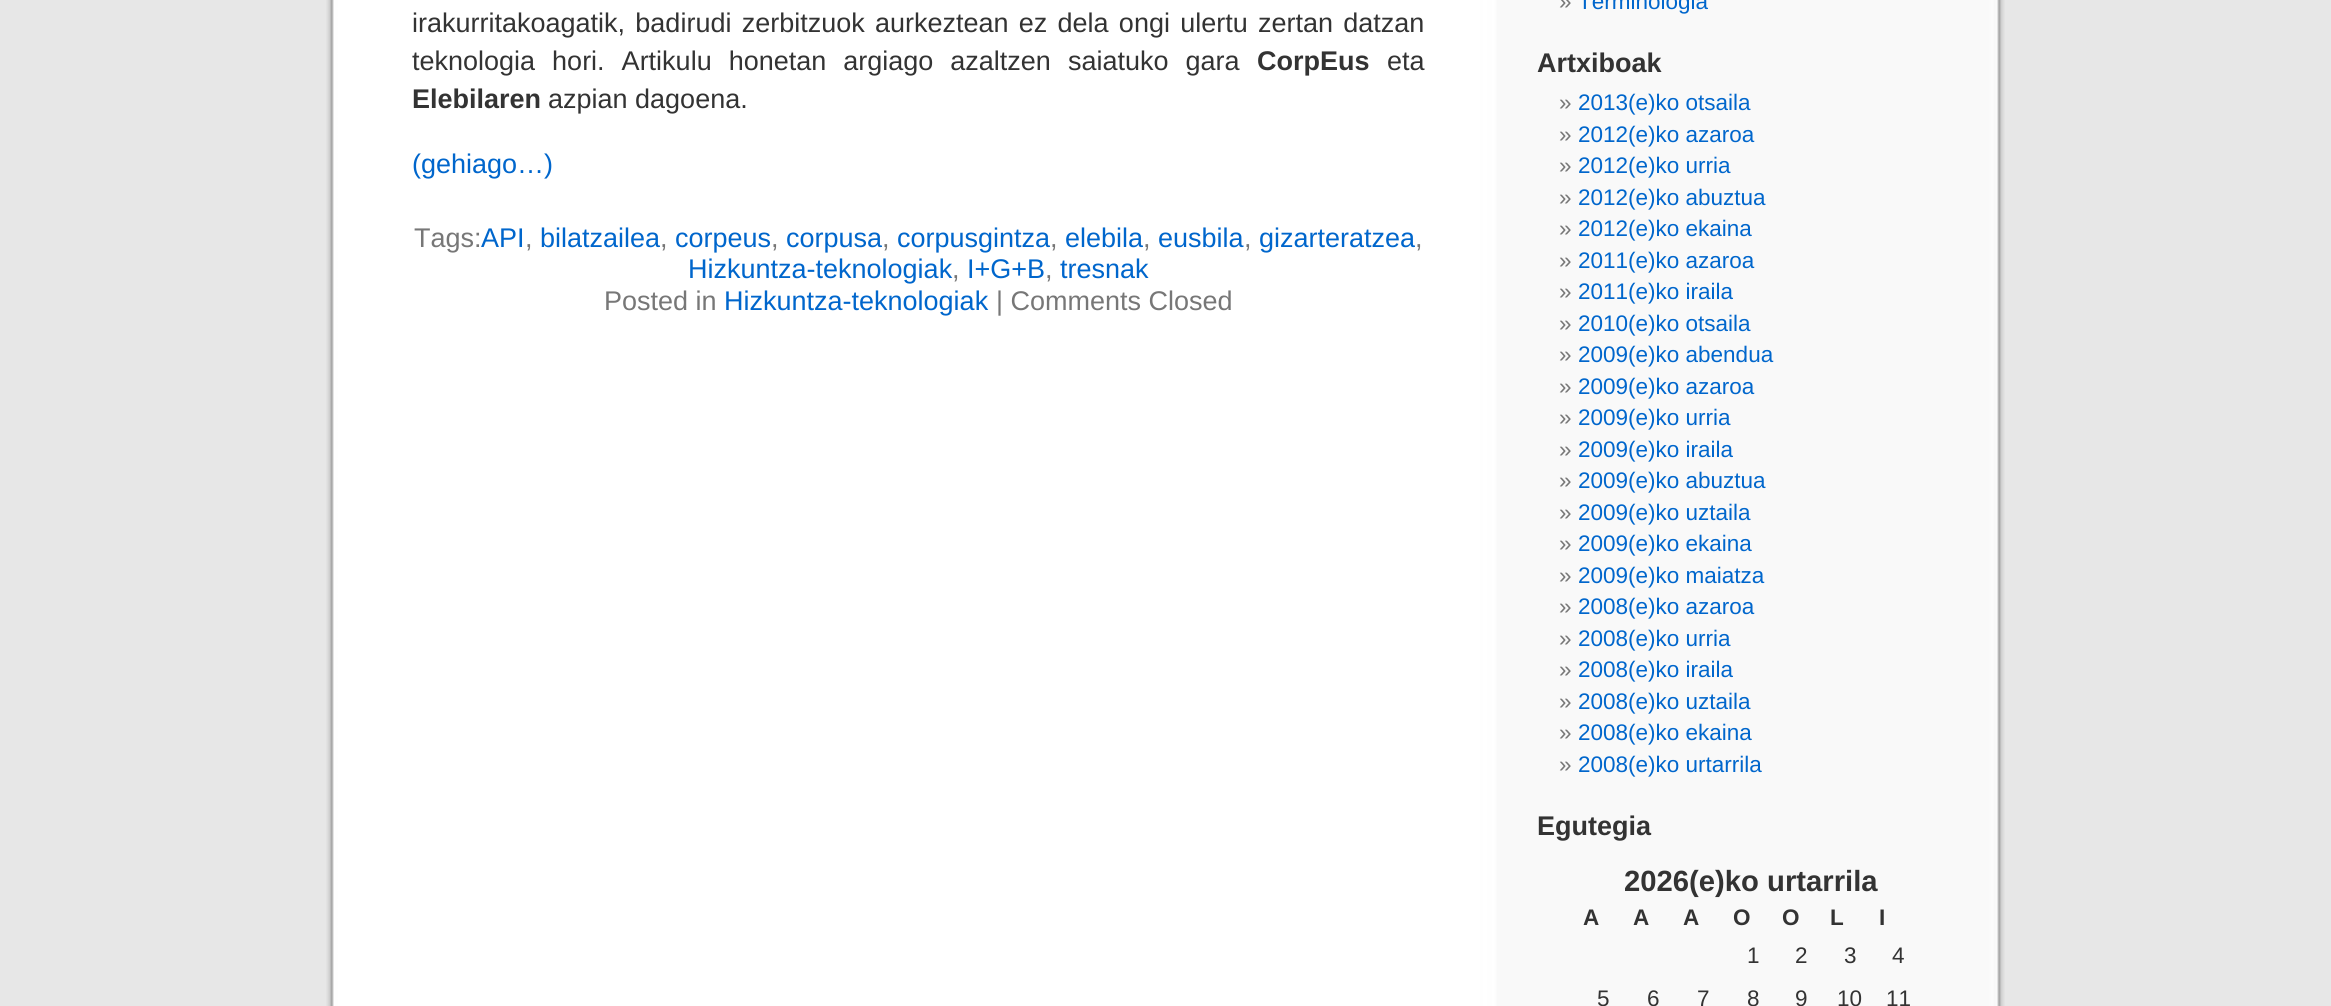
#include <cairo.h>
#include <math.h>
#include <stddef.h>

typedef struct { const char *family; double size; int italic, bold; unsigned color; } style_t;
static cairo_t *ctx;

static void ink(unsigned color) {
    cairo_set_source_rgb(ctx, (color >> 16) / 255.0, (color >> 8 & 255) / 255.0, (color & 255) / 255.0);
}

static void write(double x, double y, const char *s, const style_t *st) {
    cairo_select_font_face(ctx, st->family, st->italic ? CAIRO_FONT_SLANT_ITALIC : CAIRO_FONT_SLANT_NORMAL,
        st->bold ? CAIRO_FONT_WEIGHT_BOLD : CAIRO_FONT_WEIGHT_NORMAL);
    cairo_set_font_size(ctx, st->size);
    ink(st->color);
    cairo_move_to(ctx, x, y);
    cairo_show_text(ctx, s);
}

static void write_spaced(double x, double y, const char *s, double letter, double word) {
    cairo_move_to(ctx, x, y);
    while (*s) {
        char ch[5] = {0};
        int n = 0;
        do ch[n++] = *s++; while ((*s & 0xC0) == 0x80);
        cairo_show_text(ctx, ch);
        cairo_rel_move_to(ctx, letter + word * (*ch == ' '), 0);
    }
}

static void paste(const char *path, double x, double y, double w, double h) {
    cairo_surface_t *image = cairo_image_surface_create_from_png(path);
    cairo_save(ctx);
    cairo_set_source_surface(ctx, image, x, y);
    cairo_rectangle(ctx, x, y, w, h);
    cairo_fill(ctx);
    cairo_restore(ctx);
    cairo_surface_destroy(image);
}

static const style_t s1 = {"Liberation Sans", 27, 0, 1, 0x333333};
static const style_t s2 = {"Liberation Sans", 27, 0, 0, 0x333333};
static const style_t s3 = {"Liberation Sans", 27, 0, 0, 0x0066cc};
static const style_t s4 = {"Liberation Sans", 27, 0, 0, 0x777777};
static const style_t s5 = {"Liberation Sans", 22.5, 0, 0, 0x777777};
static const style_t s6 = {"Liberation Sans", 22.5, 0, 0, 0x0066cc};
static const style_t s7 = {"Liberation Sans", 29.25, 0, 1, 0x333333};
static const style_t s8 = {"Liberation Sans", 22.5, 0, 1, 0x333333};
static const style_t s9 = {"Liberation Sans", 22.5, 0, 0, 0x333333};

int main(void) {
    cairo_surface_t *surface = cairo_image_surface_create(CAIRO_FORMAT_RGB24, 2331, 1006);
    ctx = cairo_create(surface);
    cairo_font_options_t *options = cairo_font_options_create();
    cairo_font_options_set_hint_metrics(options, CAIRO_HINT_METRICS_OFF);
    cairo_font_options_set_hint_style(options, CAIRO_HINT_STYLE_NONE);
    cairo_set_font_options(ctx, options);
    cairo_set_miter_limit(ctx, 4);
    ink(0xe7e7e7);
    cairo_paint(ctx);
    paste("pic1.png", 326, 0, 1679, 1006);
    cairo_select_font_face(ctx, "Liberation Sans", CAIRO_FONT_SLANT_NORMAL, CAIRO_FONT_WEIGHT_NORMAL);
    cairo_set_font_size(ctx, 27);
    ink(0x333333);
    write_spaced(412, 32, "irakurritakoagatik, badirudi zerbitzuok aurkeztean ez dela ongi ulertu zertan datzan", 0, 2.75);
    write_spaced(412, 70, "teknologia hori. Artikulu honetan argiago azaltzen saiatuko gara", 0, 9.5);
    write(1257, 70, "CorpEus", &s1);
    write(1387, 70, "eta", &s2);
    write(412, 108, "Elebilaren", &s1);
    write(548, 108, "azpian dagoena.", &s2);
    write(412, 173, "(gehiago…)", &s3);
    write(414, 247, "Tags:", &s4);
    write(481, 247, "API", &s3);
    write(525, 247, ",", &s4);
    write(540, 247, "bilatzailea", &s3);
    write(660, 247, ",", &s4);
    write(675, 247, "corpeus", &s3);
    write(771, 247, ",", &s4);
    write(786, 247, "corpusa", &s3);
    write(882, 247, ",", &s4);
    write(897, 247, "corpusgintza", &s3);
    write(1050, 247, ",", &s4);
    write(1065, 247, "elebila", &s3);
    write(1143, 247, ",", &s4);
    write(1158, 247, "eusbila", &s3);
    write(1244, 247, ",", &s4);
    write(1259, 247, "gizarteratzea", &s3);
    write(1415, 247, ",", &s4);
    write(688, 278, "Hizkuntza-teknologiak", &s3);
    write(952, 278, ",", &s4);
    write(967, 278, "I+G+B", &s3);
    write(1045, 278, ",", &s4);
    write(1060, 278, "tresnak", &s3);
    write(604, 310, "Posted in", &s4);
    write(724, 310, "Hizkuntza-teknologiak", &s3);
    write(996, 310, "| Comments Closed", &s4);
    write(1559, 9, "»", &s5);
    write(1578, 9, "Terminologia", &s6);
    write(1537, 72, "Artxiboak", &s1);
    write(1559, 110, "»", &s5);
    write(1578, 110, "2013(e)ko otsaila", &s6);
    write(1559, 142, "»", &s5);
    write(1578, 142, "2012(e)ko azaroa", &s6);
    write(1559, 173, "»", &s5);
    write(1578, 173, "2012(e)ko urria", &s6);
    write(1559, 205, "»", &s5);
    write(1578, 205, "2012(e)ko abuztua", &s6);
    write(1559, 236, "»", &s5);
    write(1578, 236, "2012(e)ko ekaina", &s6);
    write(1559, 268, "»", &s5);
    write(1578, 268, "2011(e)ko azaroa", &s6);
    write(1559, 299, "»", &s5);
    write(1578, 299, "2011(e)ko iraila", &s6);
    write(1559, 331, "»", &s5);
    write(1578, 331, "2010(e)ko otsaila", &s6);
    write(1559, 362, "»", &s5);
    write(1578, 362, "2009(e)ko abendua", &s6);
    write(1559, 394, "»", &s5);
    write(1578, 394, "2009(e)ko azaroa", &s6);
    write(1559, 425, "»", &s5);
    write(1578, 425, "2009(e)ko urria", &s6);
    write(1559, 457, "»", &s5);
    write(1578, 457, "2009(e)ko iraila", &s6);
    write(1559, 488, "»", &s5);
    write(1578, 488, "2009(e)ko abuztua", &s6);
    write(1559, 520, "»", &s5);
    write(1578, 520, "2009(e)ko uztaila", &s6);
    write(1559, 551, "»", &s5);
    write(1578, 551, "2009(e)ko ekaina", &s6);
    write(1559, 583, "»", &s5);
    write(1578, 583, "2009(e)ko maiatza", &s6);
    write(1559, 614, "»", &s5);
    write(1578, 614, "2008(e)ko azaroa", &s6);
    write(1559, 646, "»", &s5);
    write(1578, 646, "2008(e)ko urria", &s6);
    write(1559, 677, "»", &s5);
    write(1578, 677, "2008(e)ko iraila", &s6);
    write(1559, 709, "»", &s5);
    write(1578, 709, "2008(e)ko uztaila", &s6);
    write(1559, 740, "»", &s5);
    write(1578, 740, "2008(e)ko ekaina", &s6);
    write(1559, 772, "»", &s5);
    write(1578, 772, "2008(e)ko urtarrila", &s6);
    write(1537, 835, "Egutegia", &s1);
    write(1624, 891, "2026(e)ko urtarrila", &s7);
    write(1583, 925, "A", &s8);
    write(1633, 925, "A", &s8);
    write(1683, 925, "A", &s8);
    write(1733, 925, "O", &s8);
    write(1782, 925, "O", &s8);
    write(1830, 925, "L", &s8);
    write(1879, 925, "I", &s8);
    write(1747, 963, "1", &s9);
    write(1795, 963, "2", &s9);
    write(1844, 963, "3", &s9);
    write(1892, 963, "4", &s9);
    write(1597, 1006, "5", &s9);
    write(1647, 1006, "6", &s9);
    write(1697, 1006, "7", &s9);
    write(1747, 1006, "8", &s9);
    write(1795, 1006, "9", &s9);
    write(1837, 1006, "10", &s9);
    write(1886, 1006, "11", &s9);
    cairo_surface_write_to_png(surface, "screenshot.png");
    cairo_font_options_destroy(options);
    cairo_destroy(ctx);
    cairo_surface_destroy(surface);
    return 0;
}
